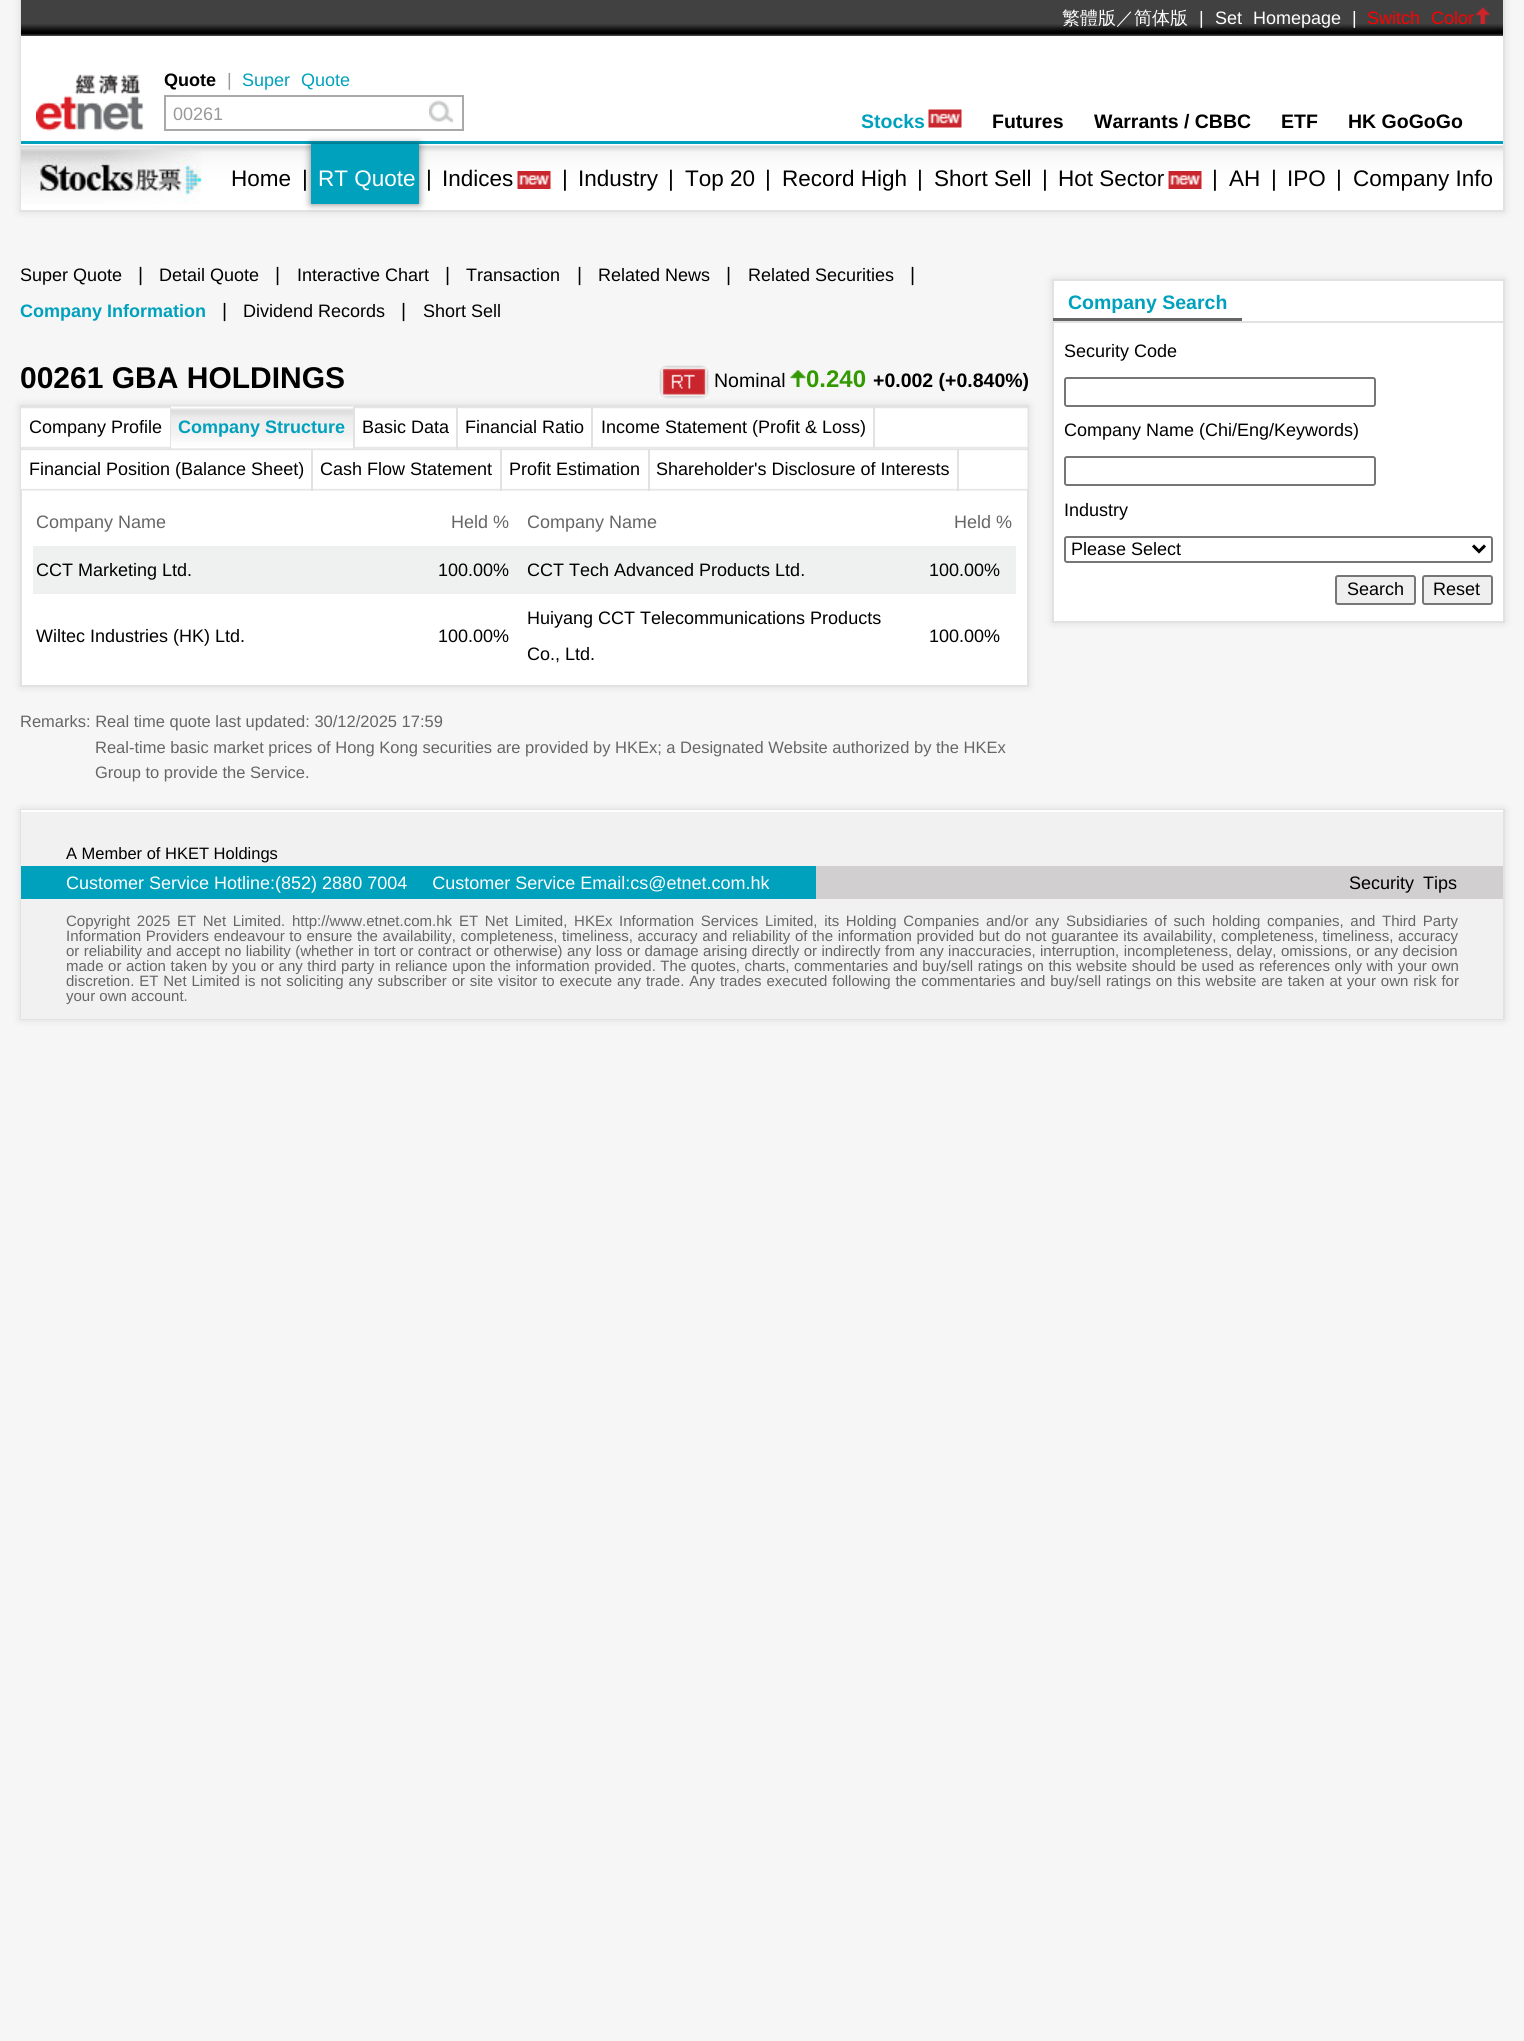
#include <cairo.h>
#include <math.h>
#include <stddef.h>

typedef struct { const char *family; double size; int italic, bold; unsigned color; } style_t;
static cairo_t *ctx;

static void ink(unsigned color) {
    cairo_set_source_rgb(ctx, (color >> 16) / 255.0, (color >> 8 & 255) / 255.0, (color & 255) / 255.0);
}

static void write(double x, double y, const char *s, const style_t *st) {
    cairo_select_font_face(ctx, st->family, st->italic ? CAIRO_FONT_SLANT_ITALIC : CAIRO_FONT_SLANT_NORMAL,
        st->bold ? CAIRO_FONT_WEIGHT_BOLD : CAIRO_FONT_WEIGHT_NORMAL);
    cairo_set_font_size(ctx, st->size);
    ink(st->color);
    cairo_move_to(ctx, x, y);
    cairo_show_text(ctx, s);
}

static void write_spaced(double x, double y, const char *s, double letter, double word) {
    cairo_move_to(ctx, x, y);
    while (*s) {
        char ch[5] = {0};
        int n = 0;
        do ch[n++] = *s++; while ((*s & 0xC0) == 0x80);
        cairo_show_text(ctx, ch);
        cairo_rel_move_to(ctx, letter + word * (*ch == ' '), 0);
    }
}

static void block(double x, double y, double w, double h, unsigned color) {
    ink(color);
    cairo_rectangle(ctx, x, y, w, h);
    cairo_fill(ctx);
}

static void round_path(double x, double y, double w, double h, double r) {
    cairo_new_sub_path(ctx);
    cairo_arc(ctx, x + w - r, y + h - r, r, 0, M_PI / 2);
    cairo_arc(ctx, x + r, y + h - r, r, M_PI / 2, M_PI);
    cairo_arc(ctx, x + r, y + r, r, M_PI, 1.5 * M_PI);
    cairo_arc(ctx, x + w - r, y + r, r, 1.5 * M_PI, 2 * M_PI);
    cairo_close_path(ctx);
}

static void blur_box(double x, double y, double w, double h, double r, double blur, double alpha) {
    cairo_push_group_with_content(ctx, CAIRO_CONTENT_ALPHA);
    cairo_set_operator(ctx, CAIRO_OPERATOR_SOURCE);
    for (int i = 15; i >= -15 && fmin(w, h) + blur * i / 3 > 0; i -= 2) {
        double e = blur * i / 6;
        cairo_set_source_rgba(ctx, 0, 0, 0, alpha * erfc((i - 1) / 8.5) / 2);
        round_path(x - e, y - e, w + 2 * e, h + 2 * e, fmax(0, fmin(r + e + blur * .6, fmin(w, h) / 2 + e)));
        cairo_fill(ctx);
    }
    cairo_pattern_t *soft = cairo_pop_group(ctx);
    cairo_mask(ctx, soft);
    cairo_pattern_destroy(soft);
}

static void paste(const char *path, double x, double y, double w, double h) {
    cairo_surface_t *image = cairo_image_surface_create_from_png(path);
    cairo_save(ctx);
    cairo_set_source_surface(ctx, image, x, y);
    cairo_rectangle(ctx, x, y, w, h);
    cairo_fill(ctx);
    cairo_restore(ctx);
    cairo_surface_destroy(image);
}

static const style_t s1 = {"WenQuanYi Zen Hei Medium", 18, 0, 0, 0xffffff};
static const style_t s2 = {"Liberation Sans", 18, 0, 0, 0xffffff};
static const style_t s3 = {"Liberation Sans", 18, 0, 1, 0x000000};
static const style_t s4 = {"Liberation Sans", 18, 0, 0, 0x999999};
static const style_t s5 = {"Liberation Sans", 19.5, 0, 1, 0x00a1bd};
static const style_t s6 = {"Liberation Sans", 19.5, 0, 1, 0x000000};
static const style_t s7 = {"Liberation Sans", 22.5, 0, 0, 0x000000};
static const style_t s8 = {"Liberation Sans", 22.5, 0, 0, 0xffffff};
static const style_t s9 = {"Liberation Sans", 18, 0, 0, 0x000000};
static const style_t s10 = {"Liberation Sans", 19.5, 0, 0, 0x000000};
static const style_t s11 = {"Liberation Sans", 18, 0, 1, 0x00a1bd};
static const style_t s12 = {"Liberation Sans", 30, 0, 1, 0x000000};
static const style_t s13 = {"Liberation Sans", 24, 0, 1, 0x339900};
static const style_t s14 = {"Liberation Sans", 18, 0, 0, 0x666666};
static const style_t s15 = {"Liberation Sans", 16.5, 0, 0, 0x666666};
static const style_t s16 = {"Liberation Sans", 16.5, 0, 0, 0x000000};
static const style_t s17 = {"Liberation Sans", 15, 0, 0, 0x666666};

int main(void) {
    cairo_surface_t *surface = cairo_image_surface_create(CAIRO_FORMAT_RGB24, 1524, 2041);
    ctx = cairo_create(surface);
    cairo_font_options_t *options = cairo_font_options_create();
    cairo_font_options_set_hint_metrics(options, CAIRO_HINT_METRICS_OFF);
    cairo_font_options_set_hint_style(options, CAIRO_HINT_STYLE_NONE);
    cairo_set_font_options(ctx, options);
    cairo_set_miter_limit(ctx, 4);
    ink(0xf6f6f6);
    cairo_paint(ctx);
    ink(0x000000);
    blur_box(20, 0, 1485, 212, 0, 4, 0.1);
    block(1503, 0, 2, 212, 0xe2e2e2);
    block(20, 210, 1485, 2, 0xe2e2e2);
    block(20, 0, 2, 212, 0xe2e2e2);
    paste("pic1.png", 21, 0, 1482, 36);
    write(1062, 24, "繁體版／简体版", &s1);
    write(1199, 24, "|", &s2);
    write_spaced(1215, 24, "Set Homepage", 0, 6);
    write(1352, 24, "|", &s2);
    ink(0xff0000);
    write_spaced(1367, 24, "Switch Color", 0, 6);
    paste("pic2.png", 1475, 7, 15, 17);
    block(21, 36, 1482, 105, 0xffffff);
    paste("pic3.png", 36, 74, 108, 57);
    write(164, 86, "Quote", &s3);
    write(227, 86, "|", &s4);
    ink(0x00a1bd);
    write_spaced(242, 86, "Super Quote", 0, 6);
    cairo_rectangle(ctx, 165, 96, 298, 34);
    ink(0xa9a9a9);
    cairo_stroke(ctx);
    write(173, 120, "00261", &s4);
    paste("pic4.png", 429, 100, 24, 23);
    write(861, 128, "Stocks", &s5);
    paste("pic5.png", 928, 109, 34, 19);
    write(992, 128, "Futures", &s6);
    write(1094, 128, "Warrants / CBBC", &s6);
    write(1281, 128, "ETF", &s6);
    write(1348, 128, "HK GoGoGo", &s6);
    block(21, 141, 1482, 3, 0x00a1bd);
    paste("pic6.png", 21, 144, 1482, 66);
    paste("pic7.png", 21, 147, 181, 57);
    write(231, 186, "Home", &s7);
    write(302, 186, "|", &s7);
    ink(0x000000);
    blur_box(311, 144, 108, 60, 0, 4, 0.5);
    block(311, 144, 108, 60, 0x00a1bd);
    write(318, 186, "RT Quote", &s8);
    write(426, 186, "|", &s7);
    write(442, 186, "Indices", &s7);
    paste("pic8.png", 517, 171, 34, 18);
    write(562, 186, "|", &s7);
    write(578, 186, "Industry", &s7);
    write(668, 186, "|", &s7);
    write(685, 186, "Top 20", &s7);
    write(765, 186, "|", &s7);
    write(782, 186, "Record High", &s7);
    write(917, 186, "|", &s7);
    write(934, 186, "Short Sell", &s7);
    write(1042, 186, "|", &s7);
    write(1058, 186, "Hot Sector", &s7);
    paste("pic9.png", 1168, 171, 34, 18);
    write(1212, 186, "|", &s7);
    write(1229, 186, "AH", &s7);
    write(1271, 186, "|", &s7);
    write(1287, 186, "IPO", &s7);
    write(1336, 186, "|", &s7);
    write(1353, 186, "Company Info", &s7);
    write(20, 281, "Super Quote", &s9);
    write(138, 281, "|", &s10);
    write(159, 281, "Detail Quote", &s9);
    write(275, 281, "|", &s10);
    write(297, 281, "Interactive Chart", &s9);
    write(445, 281, "|", &s10);
    write(466, 281, "Transaction", &s9);
    write(577, 281, "|", &s10);
    write(598, 281, "Related News", &s9);
    write(726, 281, "|", &s10);
    write(748, 281, "Related Securities", &s9);
    write(910, 281, "|", &s10);
    write(20, 317, "Company Information", &s11);
    write(222, 317, "|", &s10);
    write(243, 317, "Dividend Records", &s9);
    write(401, 317, "|", &s10);
    write(423, 317, "Short Sell", &s9);
    write(20, 388, "00261 GBA HOLDINGS", &s12);
    paste("pic10.png", 659, 365, 50, 34);
    write(714, 387, "Nominal", &s10);
    paste("pic11.png", 790, 370, 16, 17);
    write(806, 387, "0.240", &s13);
    write(873, 387, "+0.002 (+0.840%)", &s6);
    ink(0x000000);
    blur_box(20, 405, 1009, 282, 0, 4, 0.1);
    block(22, 448, 1005, 237, 0xffffff);
    cairo_rectangle(ctx, 21, 406, 1007, 280);
    ink(0xe2e2e2);
    cairo_stroke(ctx);
    paste("pic12.png", 21, 407, 1007, 42);
    block(170, 407, 2, 42, 0xe2e2e2);
    write(29, 433, "Company Profile", &s9);
    paste("pic13.png", 171, 406, 183, 43);
    block(353, 407, 2, 42, 0xe2e2e2);
    write(178, 433, "Company Structure", &s11);
    block(456, 407, 2, 42, 0xe2e2e2);
    write(362, 433, "Basic Data", &s9);
    block(591, 407, 2, 42, 0xe2e2e2);
    write(465, 433, "Financial Ratio", &s9);
    block(873, 407, 2, 42, 0xe2e2e2);
    write(601, 433, "Income Statement (Profit & Loss)", &s9);
    paste("pic14.png", 21, 448, 1007, 43);
    block(311, 449, 2, 42, 0xe2e2e2);
    write(29, 475, "Financial Position (Balance Sheet)", &s9);
    block(500, 449, 2, 42, 0xe2e2e2);
    write(320, 475, "Cash Flow Statement", &s9);
    block(648, 449, 2, 42, 0xe2e2e2);
    write(509, 475, "Profit Estimation", &s9);
    block(957, 449, 2, 42, 0xe2e2e2);
    write(656, 475, "Shareholder's Disclosure of Interests", &s9);
    write(36, 528, "Company Name", &s14);
    write(451, 528, "Held %", &s14);
    write(527, 528, "Company Name", &s14);
    write(954, 528, "Held %", &s14);
    block(33, 546, 983, 48, 0xeff0f0);
    write(36, 576, "CCT Marketing Ltd.", &s9);
    write(438, 576, "100.00%", &s9);
    write(527, 576, "CCT Tech Advanced Products Ltd.", &s9);
    write(929, 576, "100.00%", &s9);
    write(36, 642, "Wiltec Industries (HK) Ltd.", &s9);
    write(438, 642, "100.00%", &s9);
    write(527, 624, "Huiyang CCT Telecommunications Products", &s9);
    write(527, 660, "Co., Ltd.", &s9);
    write(929, 642, "100.00%", &s9);
    write(20, 727, "Remarks: Real time quote last updated: 30/12/2025 17:59", &s15);
    write(95, 753, "Real-time basic market prices of Hong Kong securities are provided by HKEx; a Designated Website authorized by the HKEx", &s15);
    write(95, 778, "Group to provide the Service.", &s15);
    ink(0x000000);
    blur_box(1052, 279, 453, 344, 0, 4, 0.1);
    ink(0xffffff);
    cairo_rectangle(ctx, 1053, 280, 451, 342);
    cairo_fill_preserve(ctx);
    ink(0xe2e2e2);
    cairo_stroke(ctx);
    block(1053, 321, 450, 2, 0xe2e2e2);
    block(1053, 318, 189, 3, 0x666666);
    write(1068, 309, "Company Search", &s5);
    write(1064, 357, "Security Code", &s9);
    round_path(1065, 378, 310, 28, 2);
    ink(0x767676);
    cairo_stroke(ctx);
    write(1064, 436, "Company Name (Chi/Eng/Keywords)", &s9);
    round_path(1065, 457, 310, 28, 2);
    ink(0x767676);
    cairo_stroke(ctx);
    write(1064, 516, "Industry", &s9);
    round_path(1065, 537, 427, 25, 2);
    ink(0x767676);
    cairo_stroke(ctx);
    cairo_new_path(ctx);
    cairo_move_to(ctx, 1473, 545.5);
    cairo_line_to(ctx, 1479, 551.5);
    cairo_line_to(ctx, 1485, 545.5);
    ink(0x000000);
    cairo_set_line_width(ctx, 3);
    cairo_stroke(ctx);
    write(1071, 555, "Please Select", &s9);
    ink(0xefefef);
    round_path(1336, 576, 79, 28, 2);
    cairo_fill_preserve(ctx);
    ink(0x767676);
    cairo_set_line_width(ctx, 2);
    cairo_stroke(ctx);
    write(1347, 595, "Search", &s9);
    ink(0xefefef);
    round_path(1423, 576, 69, 28, 2);
    cairo_fill_preserve(ctx);
    ink(0x767676);
    cairo_stroke(ctx);
    write(1433, 595, "Reset", &s9);
    ink(0x000000);
    blur_box(20, 809, 1485, 211, 0, 4, 0.1);
    cairo_rectangle(ctx, 21, 810, 1483, 209);
    ink(0xe2e2e2);
    cairo_stroke(ctx);
    block(21, 812, 1482, 207, 0xf2f1f1);
    block(21, 810, 1482, 2, 0xffffff);
    write(66, 859, "A Member of HKET Holdings", &s16);
    block(21, 866, 795, 33, 0x00a1bd);
    write(66, 889, "Customer Service Hotline:(852) 2880 7004     Customer Service Email:cs@etnet.com.hk", &s2);
    block(816, 866, 687, 33, 0xd1cfcf);
    ink(0x000000);
    write_spaced(1349, 889, "Security Tips", 0, 4);
    cairo_set_font_size(ctx, 15);
    ink(0x666666);
    write_spaced(66, 926, "Copyright 2025 ET Net Limited. http://www.etnet.com.hk", 0, 2.5);
    write_spaced(459, 926, "ET Net Limited, HKEx Information Services Limited, its Holding Companies and/or any Subsidiaries of such holding companies, and Third Party", 0, 2.5);
    write_spaced(66, 941, "Information Providers endeavour to ensure the availability, completeness, timeliness, accuracy and reliability of the information provided but do not guarantee its availability, completeness, timeliness, accuracy", 0, 0.5);
    write_spaced(66, 956, "or reliability and accept no liability (whether in tort or contract or otherwise) any loss or damage arising directly or indirectly from any inaccuracies, interruption, incompleteness, delay, omissions, or any decision", 0, 0.25);
    write_spaced(66, 971, "made or action taken by you or any third party in reliance upon the information provided. The quotes, charts, commentaries and buy/sell ratings on this website should be used as references only with your own", 0, 0.35);
    write_spaced(66, 986, "discretion. ET Net Limited is not soliciting any subscriber or site visitor to execute any trade. Any trades executed following the commentaries and buy/sell ratings on this website are taken at your own risk for", 0, 0.7);
    write(66, 1001, "your own account.", &s17);
    cairo_surface_write_to_png(surface, "screenshot.png");
    cairo_font_options_destroy(options);
    cairo_destroy(ctx);
    cairo_surface_destroy(surface);
    return 0;
}
